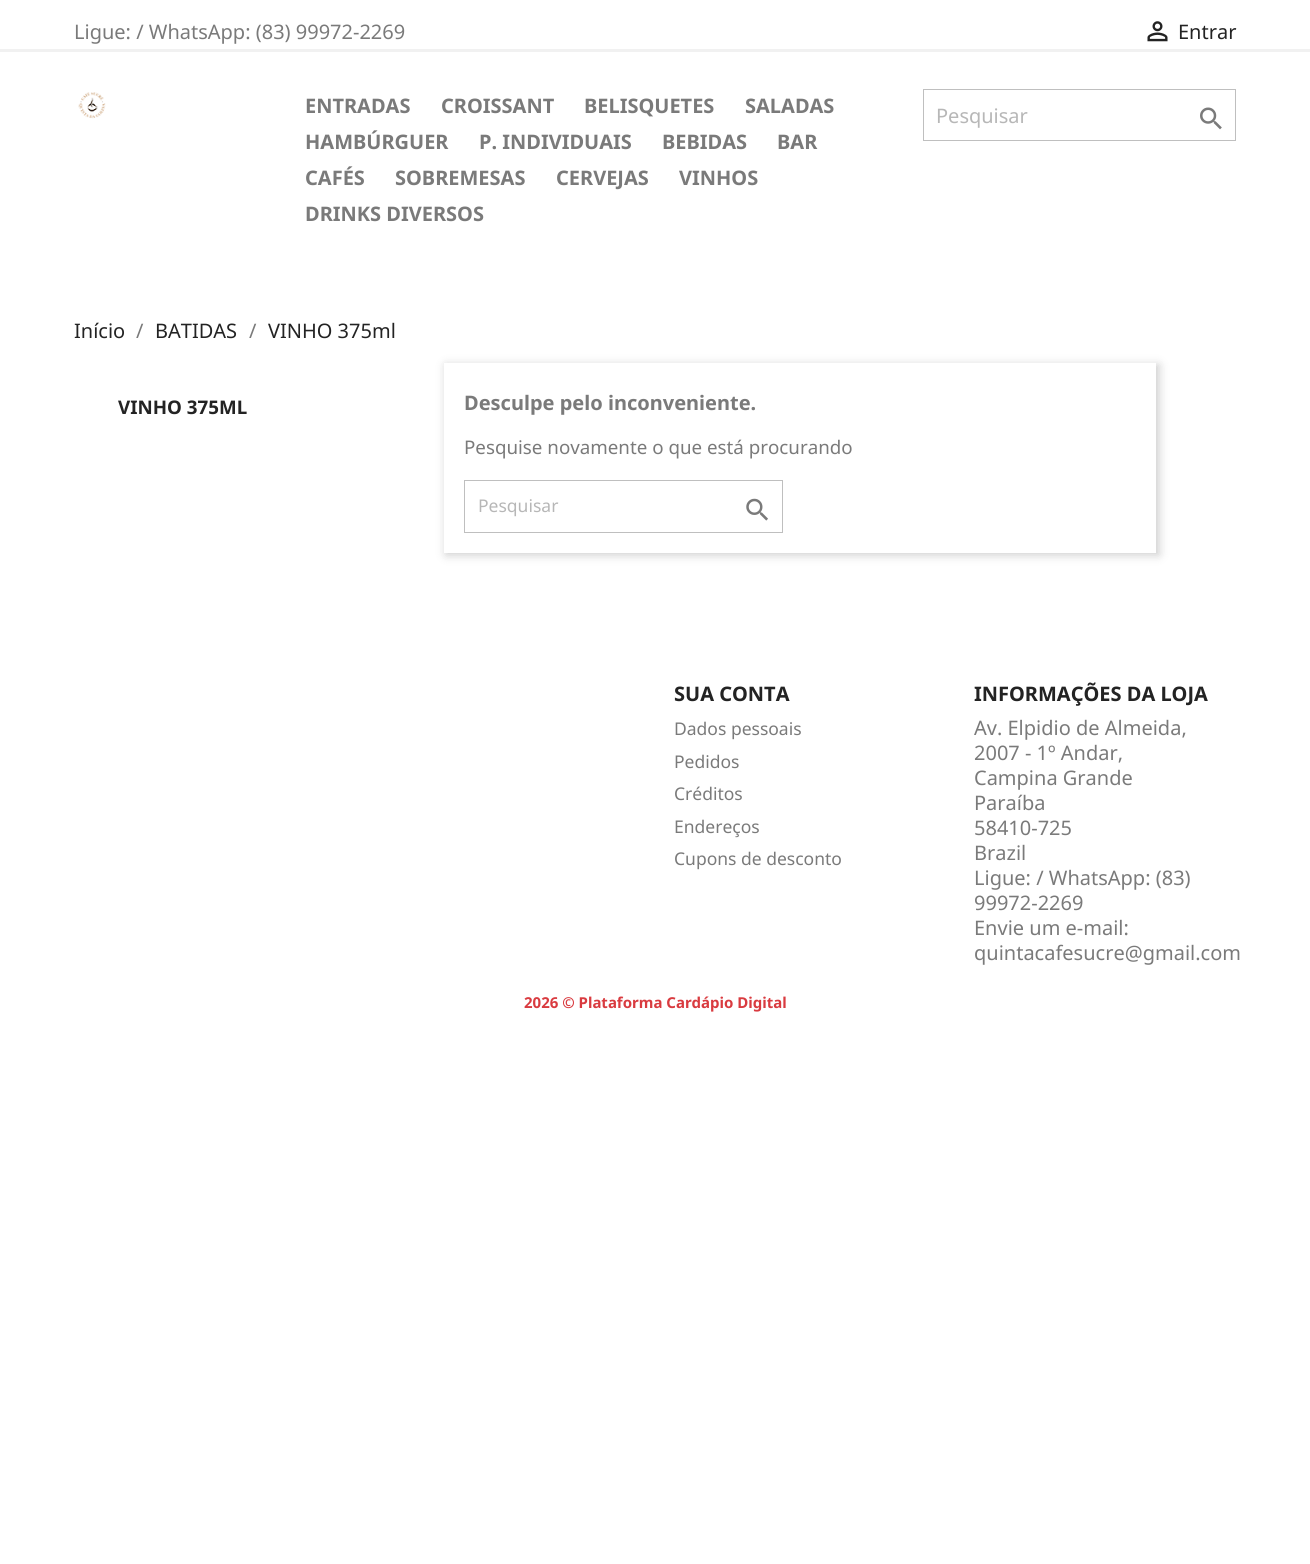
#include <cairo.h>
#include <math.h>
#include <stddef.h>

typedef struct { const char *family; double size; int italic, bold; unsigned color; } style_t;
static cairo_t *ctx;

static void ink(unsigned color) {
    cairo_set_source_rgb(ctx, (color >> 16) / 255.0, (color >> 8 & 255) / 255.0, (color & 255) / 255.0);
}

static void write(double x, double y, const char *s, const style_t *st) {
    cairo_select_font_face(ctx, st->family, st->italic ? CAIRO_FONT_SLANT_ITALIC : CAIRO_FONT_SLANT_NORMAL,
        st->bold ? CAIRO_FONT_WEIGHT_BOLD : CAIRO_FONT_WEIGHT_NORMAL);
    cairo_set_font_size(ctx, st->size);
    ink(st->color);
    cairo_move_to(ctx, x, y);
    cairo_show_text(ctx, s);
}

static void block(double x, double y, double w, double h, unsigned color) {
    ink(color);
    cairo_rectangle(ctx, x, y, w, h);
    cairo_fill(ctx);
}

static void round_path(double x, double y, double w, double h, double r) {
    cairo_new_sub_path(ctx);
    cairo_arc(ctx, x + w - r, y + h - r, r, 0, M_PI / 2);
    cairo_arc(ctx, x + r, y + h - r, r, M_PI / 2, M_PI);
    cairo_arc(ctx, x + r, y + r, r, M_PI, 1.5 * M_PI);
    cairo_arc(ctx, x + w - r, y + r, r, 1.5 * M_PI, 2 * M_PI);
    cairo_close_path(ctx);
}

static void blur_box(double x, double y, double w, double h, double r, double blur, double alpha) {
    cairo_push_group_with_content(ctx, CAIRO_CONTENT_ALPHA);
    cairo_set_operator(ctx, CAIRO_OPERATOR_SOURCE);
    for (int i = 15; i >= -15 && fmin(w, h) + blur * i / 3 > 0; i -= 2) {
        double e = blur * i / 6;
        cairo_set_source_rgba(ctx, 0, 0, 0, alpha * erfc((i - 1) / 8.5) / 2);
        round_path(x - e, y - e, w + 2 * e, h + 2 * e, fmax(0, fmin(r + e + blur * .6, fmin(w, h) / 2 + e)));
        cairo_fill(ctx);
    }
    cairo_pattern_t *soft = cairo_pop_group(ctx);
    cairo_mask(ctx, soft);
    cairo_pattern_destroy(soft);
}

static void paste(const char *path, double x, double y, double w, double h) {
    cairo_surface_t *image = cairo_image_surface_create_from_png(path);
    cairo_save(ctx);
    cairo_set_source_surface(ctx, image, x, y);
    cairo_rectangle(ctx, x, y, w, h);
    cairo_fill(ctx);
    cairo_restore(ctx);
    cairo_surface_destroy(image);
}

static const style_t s1 = {"Noto Sans", 20, 0, 0, 0x7a7a7a};
static const style_t s2 = {"Noto Sans", 20, 0, 0, 0x232323};
static const style_t s3 = {"Noto Sans", 20, 0, 1, 0x7a7a7a};
static const style_t s4 = {"Noto Sans", 20, 0, 0, 0xb7b7b7};
static const style_t s5 = {"Noto Sans", 18.75, 0, 1, 0x232323};
static const style_t s6 = {"Noto Sans", 18.75, 0, 0, 0x7a7a7a};
static const style_t s7 = {"Noto Sans", 17.5, 0, 0, 0xb7b7b7};
static const style_t s8 = {"Noto Sans", 20, 0, 1, 0x232323};
static const style_t s9 = {"Noto Sans", 17.5, 0, 0, 0x7a7a7a};
static const style_t s10 = {"Noto Sans", 15, 0, 1, 0xd93b40};

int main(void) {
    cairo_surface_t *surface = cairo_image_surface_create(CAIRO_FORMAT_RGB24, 1310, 1564);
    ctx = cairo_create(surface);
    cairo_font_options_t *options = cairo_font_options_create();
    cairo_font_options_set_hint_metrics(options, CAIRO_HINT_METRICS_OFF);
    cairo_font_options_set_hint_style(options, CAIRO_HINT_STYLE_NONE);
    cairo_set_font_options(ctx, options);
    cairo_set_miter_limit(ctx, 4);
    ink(0xffffff);
    cairo_paint(ctx);
    block(0, 49, 1310, 3, 0xf1f1f1);
    write(74, 39, "Ligue: / WhatsApp: (83) 99972-2269", &s1);
    paste("pic1.png", 1147, 21, 21, 21);
    write(1178, 39, "Entrar", &s2);
    paste("pic2.png", 78, 92, 28, 27);
    write(305, 113, "ENTRADAS", &s3);
    write(441, 113, "CROISSANT", &s3);
    write(584, 113, "BELISQUETES", &s3);
    write(745, 113, "SALADAS", &s3);
    write(305, 149, "HAMBÚRGUER", &s3);
    write(479, 149, "P. INDIVIDUAIS", &s3);
    write(662, 149, "BEBIDAS", &s3);
    write(777, 149, "BAR", &s3);
    write(305, 185, "CAFÉS", &s3);
    write(395, 185, "SOBREMESAS", &s3);
    write(556, 185, "CERVEJAS", &s3);
    write(679, 185, "VINHOS", &s3);
    write(305, 221, "DRINKS DIVERSOS", &s3);
    cairo_rectangle(ctx, 923.5, 89.5, 312, 51);
    ink(0xbfbfbf);
    cairo_set_line_width(ctx, 1);
    cairo_stroke(ctx);
    write(936, 123, "Pesquisar", &s4);
    paste("pic3.png", 1200, 107, 22, 23);
    write(74, 338, "Início", &s2);
    write(136, 338, "/", &s1);
    write(155, 338, "BATIDAS", &s2);
    write(249, 338, "/", &s1);
    write(268, 338, "VINHO 375ml", &s2);
    write(118, 414, "VINHO 375ML", &s5);
    ink(0x000000);
    blur_box(446, 365, 713, 190, 0, 5, 0.2);
    block(444, 363, 712, 190, 0xffffff);
    write(464, 410, "Desculpe pelo inconveniente.", &s3);
    write(464, 454, "Pesquise novamente o que está procurando", &s6);
    cairo_rectangle(ctx, 464.5, 480.5, 318, 52);
    ink(0xbfbfbf);
    cairo_stroke(ctx);
    write(478, 512, "Pesquisar", &s7);
    paste("pic4.png", 746, 498, 22, 23);
    write(674, 701, "SUA CONTA", &s8);
    write(674, 735, "Dados pessoais", &s9);
    write(674, 768, "Pedidos", &s9);
    write(674, 800, "Créditos", &s9);
    write(674, 833, "Endereços", &s9);
    write(674, 865, "Cupons de desconto", &s9);
    write(974, 701, "INFORMAÇÕES DA LOJA", &s8);
    write(974, 735, "Av. Elpidio de Almeida,", &s1);
    write(974, 760, "2007 - 1º Andar,", &s1);
    write(974, 785, "Campina Grande", &s1);
    write(974, 810, "Paraíba", &s1);
    write(974, 835, "58410-725", &s1);
    write(974, 860, "Brazil", &s1);
    write(974, 885, "Ligue: / WhatsApp: (83)", &s1);
    write(974, 910, "99972-2269", &s1);
    write(974, 935, "Envie um e-mail:", &s1);
    write(974, 960, "quintacafesucre@gmail.com", &s1);
    write(524, 1008, "2026 © Plataforma Cardápio Digital", &s10);
    cairo_surface_write_to_png(surface, "screenshot.png");
    cairo_font_options_destroy(options);
    cairo_destroy(ctx);
    cairo_surface_destroy(surface);
    return 0;
}
